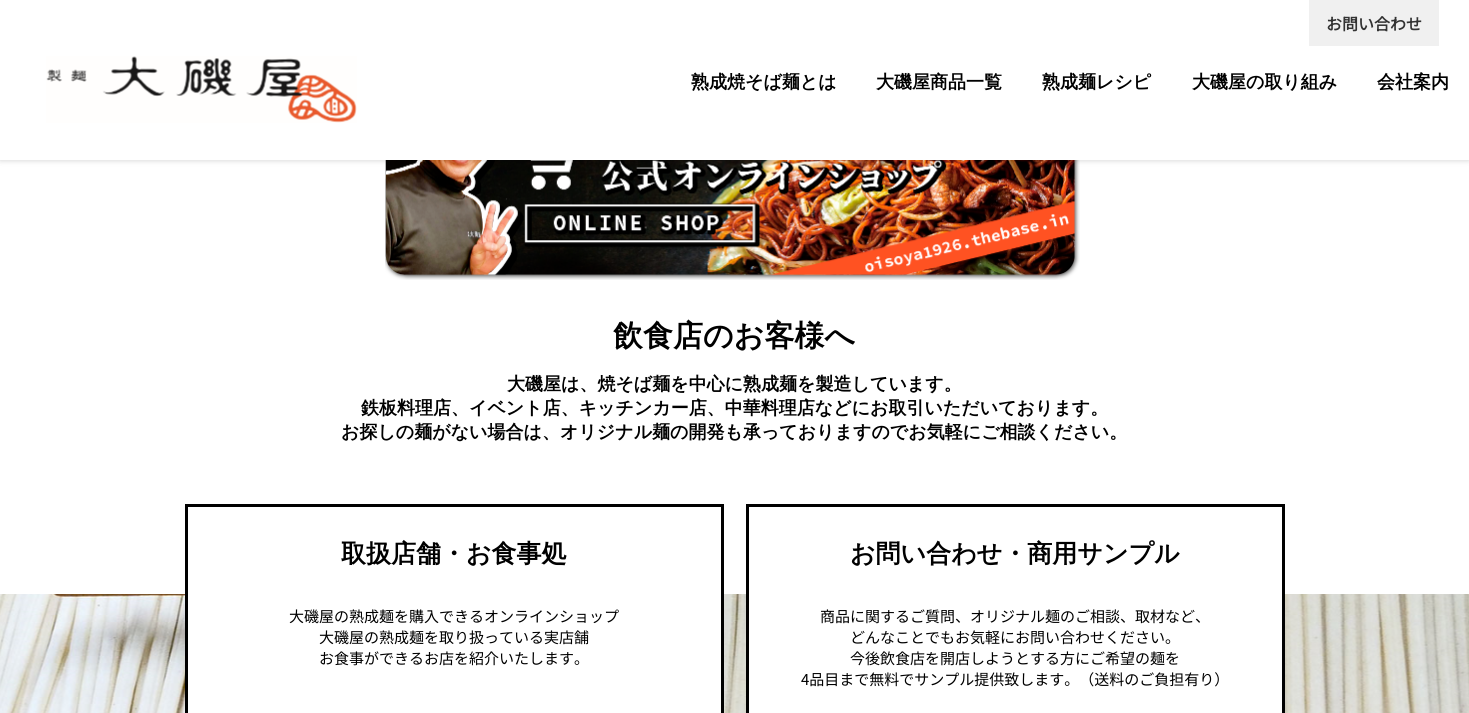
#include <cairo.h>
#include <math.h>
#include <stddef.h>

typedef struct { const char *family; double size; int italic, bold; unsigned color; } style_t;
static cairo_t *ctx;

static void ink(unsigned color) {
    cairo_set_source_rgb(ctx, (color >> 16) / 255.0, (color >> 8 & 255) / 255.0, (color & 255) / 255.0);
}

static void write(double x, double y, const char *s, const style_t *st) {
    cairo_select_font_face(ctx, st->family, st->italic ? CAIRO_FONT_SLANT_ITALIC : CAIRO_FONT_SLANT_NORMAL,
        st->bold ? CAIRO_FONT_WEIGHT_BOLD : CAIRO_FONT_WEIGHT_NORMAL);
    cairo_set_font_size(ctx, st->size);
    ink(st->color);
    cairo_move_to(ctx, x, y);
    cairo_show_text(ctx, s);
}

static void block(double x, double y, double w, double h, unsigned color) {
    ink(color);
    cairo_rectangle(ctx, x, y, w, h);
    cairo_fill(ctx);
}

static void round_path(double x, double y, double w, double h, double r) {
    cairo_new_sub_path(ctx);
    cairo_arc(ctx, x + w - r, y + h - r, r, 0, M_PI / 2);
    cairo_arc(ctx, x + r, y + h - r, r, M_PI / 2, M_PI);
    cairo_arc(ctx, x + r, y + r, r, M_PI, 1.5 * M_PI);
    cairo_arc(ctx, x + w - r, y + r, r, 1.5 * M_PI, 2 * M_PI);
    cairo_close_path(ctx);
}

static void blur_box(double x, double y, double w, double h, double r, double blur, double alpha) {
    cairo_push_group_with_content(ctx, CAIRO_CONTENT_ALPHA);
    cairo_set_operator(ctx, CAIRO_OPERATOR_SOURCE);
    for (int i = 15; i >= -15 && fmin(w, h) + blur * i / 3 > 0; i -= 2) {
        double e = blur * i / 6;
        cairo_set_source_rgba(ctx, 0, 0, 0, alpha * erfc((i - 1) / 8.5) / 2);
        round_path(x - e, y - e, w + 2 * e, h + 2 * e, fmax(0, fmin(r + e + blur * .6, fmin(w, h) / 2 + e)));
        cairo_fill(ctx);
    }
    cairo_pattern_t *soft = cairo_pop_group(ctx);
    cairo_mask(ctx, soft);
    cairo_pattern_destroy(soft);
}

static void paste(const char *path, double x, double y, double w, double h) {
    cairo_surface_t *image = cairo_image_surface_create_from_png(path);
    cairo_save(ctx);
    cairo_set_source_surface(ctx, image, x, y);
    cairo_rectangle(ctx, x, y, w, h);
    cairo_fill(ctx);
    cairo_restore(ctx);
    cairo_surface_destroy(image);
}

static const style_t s1 = {"Noto Sans JP", 16, 0, 1, 0x333333};
static const style_t s2 = {"WenQuanYi Zen Hei", 18, 0, 1, 0x000000};
static const style_t s3 = {"WenQuanYi Zen Hei", 30, 0, 1, 0x000000};
static const style_t s4 = {"WenQuanYi Zen Hei", 25, 0, 1, 0x000000};
static const style_t s5 = {"Noto Sans JP Thin", 15, 0, 0, 0x000000};

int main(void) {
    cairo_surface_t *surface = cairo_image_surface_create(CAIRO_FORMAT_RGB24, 1469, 713);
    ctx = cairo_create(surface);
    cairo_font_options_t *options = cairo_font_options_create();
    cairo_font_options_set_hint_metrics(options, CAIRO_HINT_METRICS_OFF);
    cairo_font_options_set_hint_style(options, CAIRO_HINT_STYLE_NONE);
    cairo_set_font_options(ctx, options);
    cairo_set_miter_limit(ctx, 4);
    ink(0xffffff);
    cairo_paint(ctx);
    paste("pic2.png", 385, 160, 695, 120);
    ink(0x000000);
    blur_box(0, 0, 1469, 160, 0, 3, 0.2);
    block(0, 0, 1469, 160, 0xffffff);
    block(1309, 0, 130, 46, 0xf0f0f0);
    write(1326, 30, "お問い合わせ", &s1);
    paste("pic1.png", 46, 56, 311, 67);
    write(691, 88, "熟成焼そば麺とは", &s2);
    write(876, 88, "大磯屋商品一覧", &s2);
    write(1042, 88, "熟成麺レシピ", &s2);
    write(1192, 88, "大磯屋の取り組み", &s2);
    write(1377, 88, "会社案内", &s2);
    write(613, 346, "飲食店のお客様へ", &s3);
    write(507, 390, "大磯屋は、焼そば麺を中心に熟成麺を製造しています。", &s2);
    write(361, 414, "鉄板料理店、イベント店、キッチンカー店、中華料理店などにお取引いただいております。", &s2);
    write(341, 438, "お探しの麺がない場合は、オリジナル麺の開発も承っておりますのでお気軽にご相談ください。", &s2);
    paste("pic3.png", 0, 594, 1469, 119);
    block(188, 594, 533, 119, 0xffffff);
    cairo_rectangle(ctx, 186.5, 505.5, 536, 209);
    ink(0x000000);
    cairo_set_line_width(ctx, 3);
    cairo_stroke(ctx);
    write(341, 562, "取扱店舗・お食事処", &s4);
    write(289, 622, "大磯屋の熟成麺を購入できるオンラインショップ", &s5);
    write(319, 643, "大磯屋の熟成麺を取り扱っている実店舗", &s5);
    write(319, 664, "お食事ができるお店を紹介いたします。", &s5);
    block(749, 594, 533, 119, 0xffffff);
    cairo_rectangle(ctx, 747.5, 505.5, 536, 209);
    ink(0x000000);
    cairo_stroke(ctx);
    write(850, 562, "お問い合わせ・商用サンプル", &s4);
    write(820, 622, "商品に関するご質問、オリジナル麺のご相談、取材など、", &s5);
    write(850, 643, "どんなことでもお気軽にお問い合わせください。", &s5);
    write(850, 664, "今後飲食店を開店しようとする方にご希望の麺を", &s5);
    write(801, 685, "4品目まで無料でサンプル提供致します。（送料のご負担有り）", &s5);
    cairo_surface_write_to_png(surface, "screenshot.png");
    cairo_font_options_destroy(options);
    cairo_destroy(ctx);
    cairo_surface_destroy(surface);
    return 0;
}
